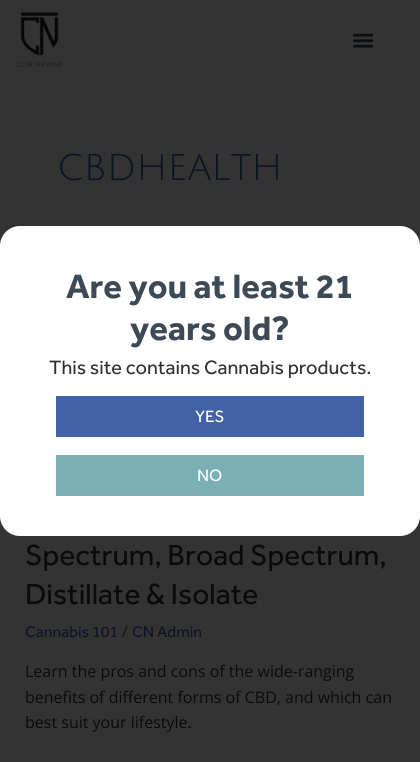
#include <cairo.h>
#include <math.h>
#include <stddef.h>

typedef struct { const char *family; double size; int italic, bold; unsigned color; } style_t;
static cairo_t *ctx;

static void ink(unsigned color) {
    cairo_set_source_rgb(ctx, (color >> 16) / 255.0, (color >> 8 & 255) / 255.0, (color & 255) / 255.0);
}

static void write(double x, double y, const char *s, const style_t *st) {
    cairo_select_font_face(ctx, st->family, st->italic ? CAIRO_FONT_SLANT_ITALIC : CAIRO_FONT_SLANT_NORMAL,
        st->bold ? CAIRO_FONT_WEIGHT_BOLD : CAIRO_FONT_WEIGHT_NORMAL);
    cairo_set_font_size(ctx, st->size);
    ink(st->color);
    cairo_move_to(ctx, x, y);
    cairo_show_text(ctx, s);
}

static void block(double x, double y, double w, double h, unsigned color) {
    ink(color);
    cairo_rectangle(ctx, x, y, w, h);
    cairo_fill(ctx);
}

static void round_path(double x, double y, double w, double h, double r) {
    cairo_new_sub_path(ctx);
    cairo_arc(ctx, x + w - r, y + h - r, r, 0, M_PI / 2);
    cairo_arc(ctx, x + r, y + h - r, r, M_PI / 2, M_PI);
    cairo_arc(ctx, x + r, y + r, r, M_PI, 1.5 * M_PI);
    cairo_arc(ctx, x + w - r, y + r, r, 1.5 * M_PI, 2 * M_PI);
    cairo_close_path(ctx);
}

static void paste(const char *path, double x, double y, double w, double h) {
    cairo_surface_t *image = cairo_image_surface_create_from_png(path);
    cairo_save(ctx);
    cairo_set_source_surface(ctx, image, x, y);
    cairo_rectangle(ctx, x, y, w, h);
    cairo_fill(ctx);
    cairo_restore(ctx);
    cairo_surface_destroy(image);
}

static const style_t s1 = {"Julius Sans One", 40, 0, 0, 0x0d1321};
static const style_t s2 = {"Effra", 30, 0, 0, 0x0a0a0a};
static const style_t s3 = {"Effra", 16, 0, 0, 0x0d1321};
static const style_t s4 = {"Open Sans", 16, 0, 0, 0x0d1321};
static const style_t s5 = {"Open Sans", 16, 0, 0, 0x0a0a0a};
static const style_t s6 = {"Effra", 35, 0, 1, 0x3d4954};
static const style_t s7 = {"Effra", 20, 0, 0, 0x2f3133};
static const style_t s8 = {"Effra", 17, 0, 0, 0xffffff};

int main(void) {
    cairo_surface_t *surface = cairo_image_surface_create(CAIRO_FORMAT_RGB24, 420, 762);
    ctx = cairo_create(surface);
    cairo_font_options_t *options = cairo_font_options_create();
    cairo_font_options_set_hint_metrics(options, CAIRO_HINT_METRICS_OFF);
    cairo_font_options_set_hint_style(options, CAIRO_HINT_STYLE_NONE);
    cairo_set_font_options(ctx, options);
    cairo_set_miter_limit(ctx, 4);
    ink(0x333333);
    cairo_paint(ctx);
    paste("pic1.png", 16, 12, 47, 55);
    paste("pic2.png", 352, 33, 22, 15);
    write(57, 180, "cbdhealth", &s1);
    write(25, 565, "Spectrum, Broad Spectrum,", &s2);
    write(25, 604, "Distillate & Isolate", &s2);
    write(25, 637, "Cannabis 101", &s3);
    write(122, 637, "/", &s4);
    write(132, 637, "CN Admin", &s3);
    write(25, 677, "Learn the pros and cons of the wide-ranging", &s5);
    write(25, 703, "benefits of different forms of CBD, and which can", &s5);
    write(25, 728, "best suit your lifestyle.", &s5);
    ink(0xffffff);
    round_path(0, 226, 420, 310, 20);
    cairo_fill(ctx);
    write(66, 298, "Are you at least 21", &s6);
    write(130, 340, "years old?", &s6);
    write(49, 374, "This site contains Cannabis products.", &s7);
    block(56, 396, 308, 41, 0x4261a6);
    write(195, 422, "YES", &s8);
    block(56, 455, 308, 41, 0x7bafb6);
    write(197, 481, "NO", &s8);
    cairo_surface_write_to_png(surface, "screenshot.png");
    cairo_font_options_destroy(options);
    cairo_destroy(ctx);
    cairo_surface_destroy(surface);
    return 0;
}
